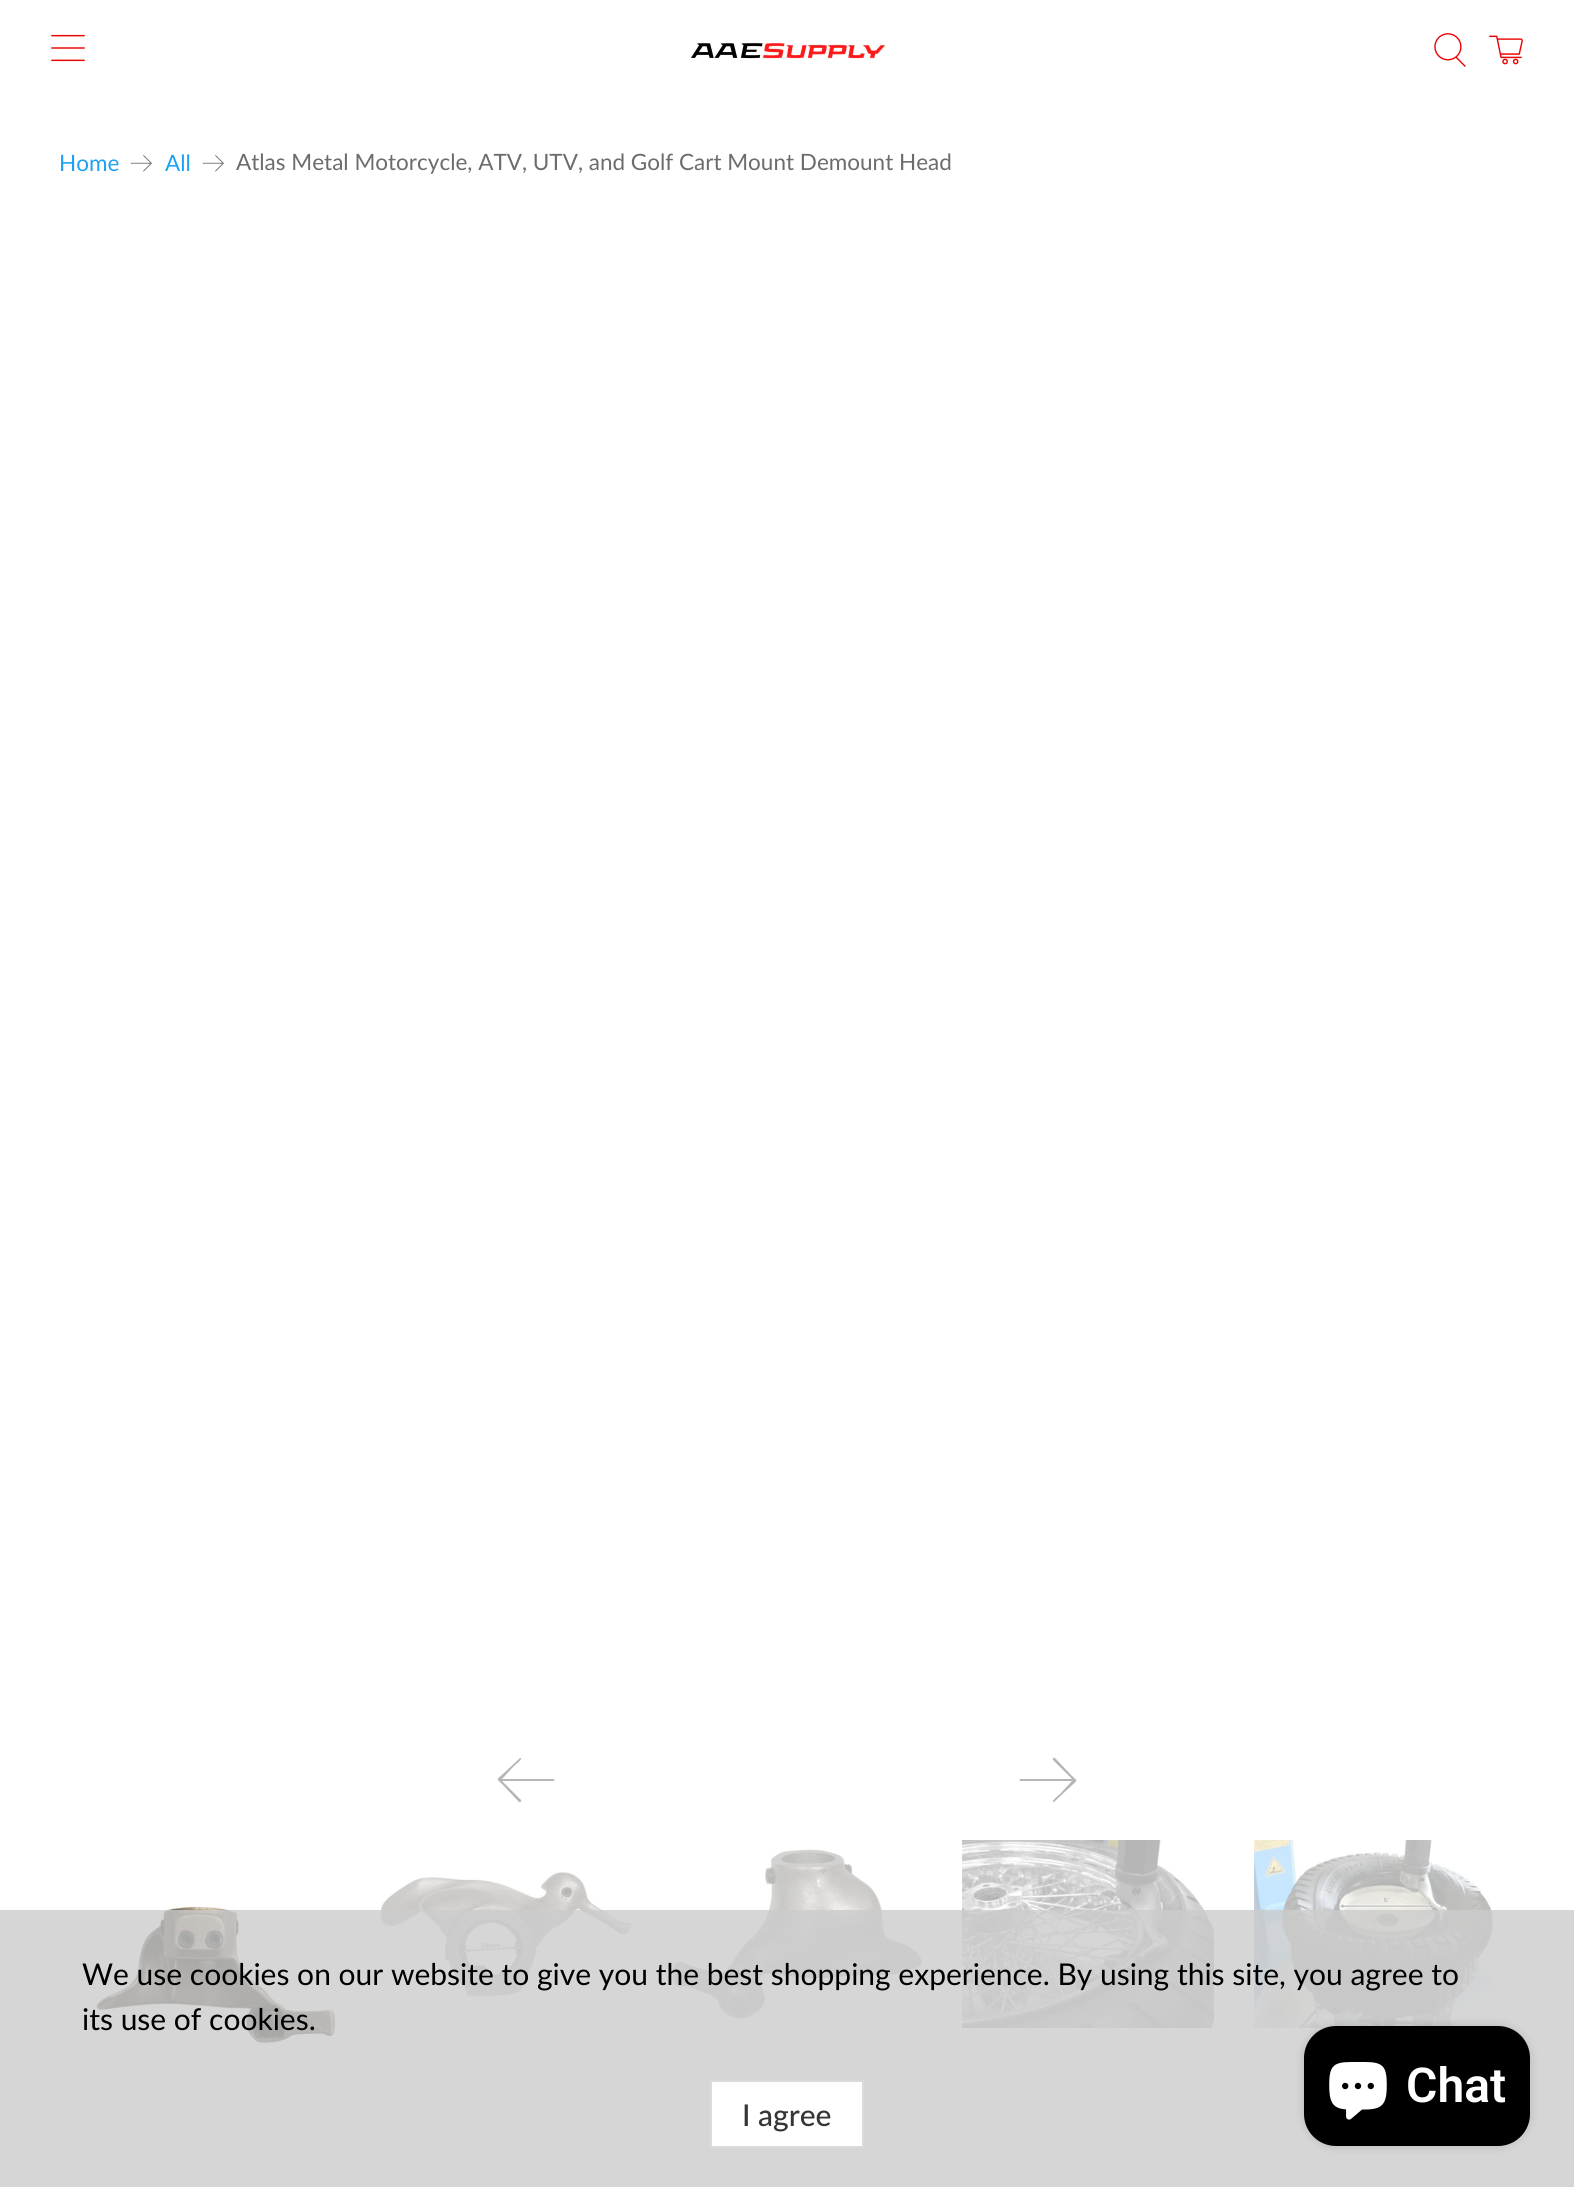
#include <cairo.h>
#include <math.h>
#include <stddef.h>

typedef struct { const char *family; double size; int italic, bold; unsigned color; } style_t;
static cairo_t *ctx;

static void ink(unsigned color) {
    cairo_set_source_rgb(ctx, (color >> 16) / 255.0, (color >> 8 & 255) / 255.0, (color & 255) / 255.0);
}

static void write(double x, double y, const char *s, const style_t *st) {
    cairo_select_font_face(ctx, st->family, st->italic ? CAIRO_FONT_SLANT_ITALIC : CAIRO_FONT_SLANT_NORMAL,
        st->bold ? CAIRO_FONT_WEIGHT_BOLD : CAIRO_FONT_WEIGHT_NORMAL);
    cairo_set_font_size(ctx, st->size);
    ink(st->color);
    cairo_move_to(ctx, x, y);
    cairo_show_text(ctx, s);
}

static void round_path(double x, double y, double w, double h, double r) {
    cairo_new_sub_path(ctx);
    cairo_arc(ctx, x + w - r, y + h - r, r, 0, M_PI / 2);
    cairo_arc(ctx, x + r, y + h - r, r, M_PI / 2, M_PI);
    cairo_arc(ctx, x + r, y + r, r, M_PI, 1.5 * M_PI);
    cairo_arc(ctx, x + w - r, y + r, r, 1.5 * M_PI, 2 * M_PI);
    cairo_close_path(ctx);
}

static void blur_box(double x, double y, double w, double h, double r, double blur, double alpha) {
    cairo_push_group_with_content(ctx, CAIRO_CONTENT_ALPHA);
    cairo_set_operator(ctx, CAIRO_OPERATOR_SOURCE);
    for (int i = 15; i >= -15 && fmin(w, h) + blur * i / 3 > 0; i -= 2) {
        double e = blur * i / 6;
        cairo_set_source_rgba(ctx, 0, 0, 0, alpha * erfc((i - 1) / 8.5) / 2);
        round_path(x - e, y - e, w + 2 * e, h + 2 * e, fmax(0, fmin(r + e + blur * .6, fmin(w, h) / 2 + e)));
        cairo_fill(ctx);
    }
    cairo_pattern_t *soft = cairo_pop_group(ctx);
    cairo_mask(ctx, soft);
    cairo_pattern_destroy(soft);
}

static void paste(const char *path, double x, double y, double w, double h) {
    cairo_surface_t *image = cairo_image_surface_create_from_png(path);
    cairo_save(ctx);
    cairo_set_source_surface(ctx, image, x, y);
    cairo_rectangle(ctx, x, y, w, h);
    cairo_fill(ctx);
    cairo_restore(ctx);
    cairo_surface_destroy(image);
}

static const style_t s1 = {"Lato", 22.5, 0, 0, 0x1da1f2};
static const style_t s2 = {"Lato", 22.5, 0, 0, 0x6c6c6c};
static const style_t s3 = {"Lato", 30, 0, 0, 0x000000};
static const style_t s4 = {"Lato Medium", 30, 0, 0, 0x363636};
static const style_t s5 = {"Roboto SemiBold", 48, 0, 0, 0xffffff};

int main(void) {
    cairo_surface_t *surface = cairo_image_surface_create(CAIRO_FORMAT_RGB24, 1574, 2187);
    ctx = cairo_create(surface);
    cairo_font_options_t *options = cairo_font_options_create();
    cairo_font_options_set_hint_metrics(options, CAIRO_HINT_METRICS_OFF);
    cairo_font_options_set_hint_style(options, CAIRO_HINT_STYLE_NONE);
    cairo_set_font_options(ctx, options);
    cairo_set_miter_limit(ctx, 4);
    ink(0xffffff);
    cairo_paint(ctx);
    paste("pic1.png", 51, 34, 34, 28);
    paste("pic2.png", 691, 42, 194, 17);
    paste("pic3.png", 1434, 33, 32, 34);
    paste("pic4.png", 1489, 35, 34, 30);
    write(59, 171, "Home", &s1);
    paste("pic5.png", 130, 155, 22, 17);
    write(165, 171, "All", &s1);
    paste("pic5.png", 202, 155, 22, 17);
    write(236, 170, "Atlas Metal Motorcycle, ATV, UTV, and Golf Cart Mount Demount Head", &s2);
    ink(0xb6b6b6);
    cairo_new_path(ctx);
    cairo_move_to(ctx, 553, 1779);
    cairo_line_to(ctx, 502, 1779);
    cairo_line_to(ctx, 514, 1766);
    cairo_curve_to(ctx, 515, 1765, 522, 1760, 521, 1758);
    cairo_line_to(ctx, 520, 1758);
    cairo_line_to(ctx, 505, 1772);
    cairo_curve_to(ctx, 497, 1780, 495, 1778, 502, 1784);
    cairo_line_to(ctx, 519, 1802);
    cairo_curve_to(ctx, 520, 1803, 522, 1801, 521, 1800);
    cairo_line_to(ctx, 502, 1781);
    cairo_line_to(ctx, 553, 1781);
    cairo_curve_to(ctx, 555, 1781, 555, 1779, 553, 1779);
    cairo_close_path(ctx);
    cairo_fill(ctx);
    cairo_new_path(ctx);
    cairo_move_to(ctx, 1021, 1781);
    cairo_line_to(ctx, 1072, 1781);
    cairo_line_to(ctx, 1060, 1794);
    cairo_curve_to(ctx, 1059, 1795, 1052, 1800, 1053, 1802);
    cairo_line_to(ctx, 1054, 1802);
    cairo_line_to(ctx, 1069, 1788);
    cairo_curve_to(ctx, 1077, 1780, 1079, 1782, 1072, 1776);
    cairo_line_to(ctx, 1055, 1758);
    cairo_curve_to(ctx, 1054, 1757, 1052, 1759, 1053, 1760);
    cairo_line_to(ctx, 1072, 1779);
    cairo_line_to(ctx, 1021, 1779);
    cairo_curve_to(ctx, 1019, 1779, 1019, 1781, 1021, 1781);
    cairo_close_path(ctx);
    cairo_fill(ctx);
    paste("pic6.png", 96, 1906, 241, 139);
    paste("pic7.png", 380, 1872, 252, 125);
    paste("pic8.png", 672, 1849, 250, 170);
    paste("pic9.png", 962, 1840, 252, 188);
    paste("pic10.png", 1254, 1840, 250, 188);
    cairo_set_source_rgba(ctx, 0.8, 0.8, 0.8, 0.8);
    cairo_rectangle(ctx, 0, 1910, 1574, 277);
    cairo_fill(ctx);
    write(82, 1985, "We use cookies on our website to give you the best shopping experience. By using this site, you agree to", &s3);
    write(82, 2030, "its use of cookies.", &s3);
    ink(0xffffff);
    cairo_rectangle(ctx, 711, 2081, 152, 66);
    cairo_fill_preserve(ctx);
    ink(0xdbdbdb);
    cairo_stroke(ctx);
    write(742, 2126, "I agree", &s4);
    ink(0x000000);
    blur_box(1304, 2026, 226, 120, 32, 5, 0.15);
    ink(0x000000);
    round_path(1304, 2026, 226, 120, 32);
    cairo_fill(ctx);
    paste("pic11.png", 1329, 2062, 58, 58);
    write(1406, 2102, "Chat", &s5);
    cairo_surface_write_to_png(surface, "screenshot.png");
    cairo_font_options_destroy(options);
    cairo_destroy(ctx);
    cairo_surface_destroy(surface);
    return 0;
}
